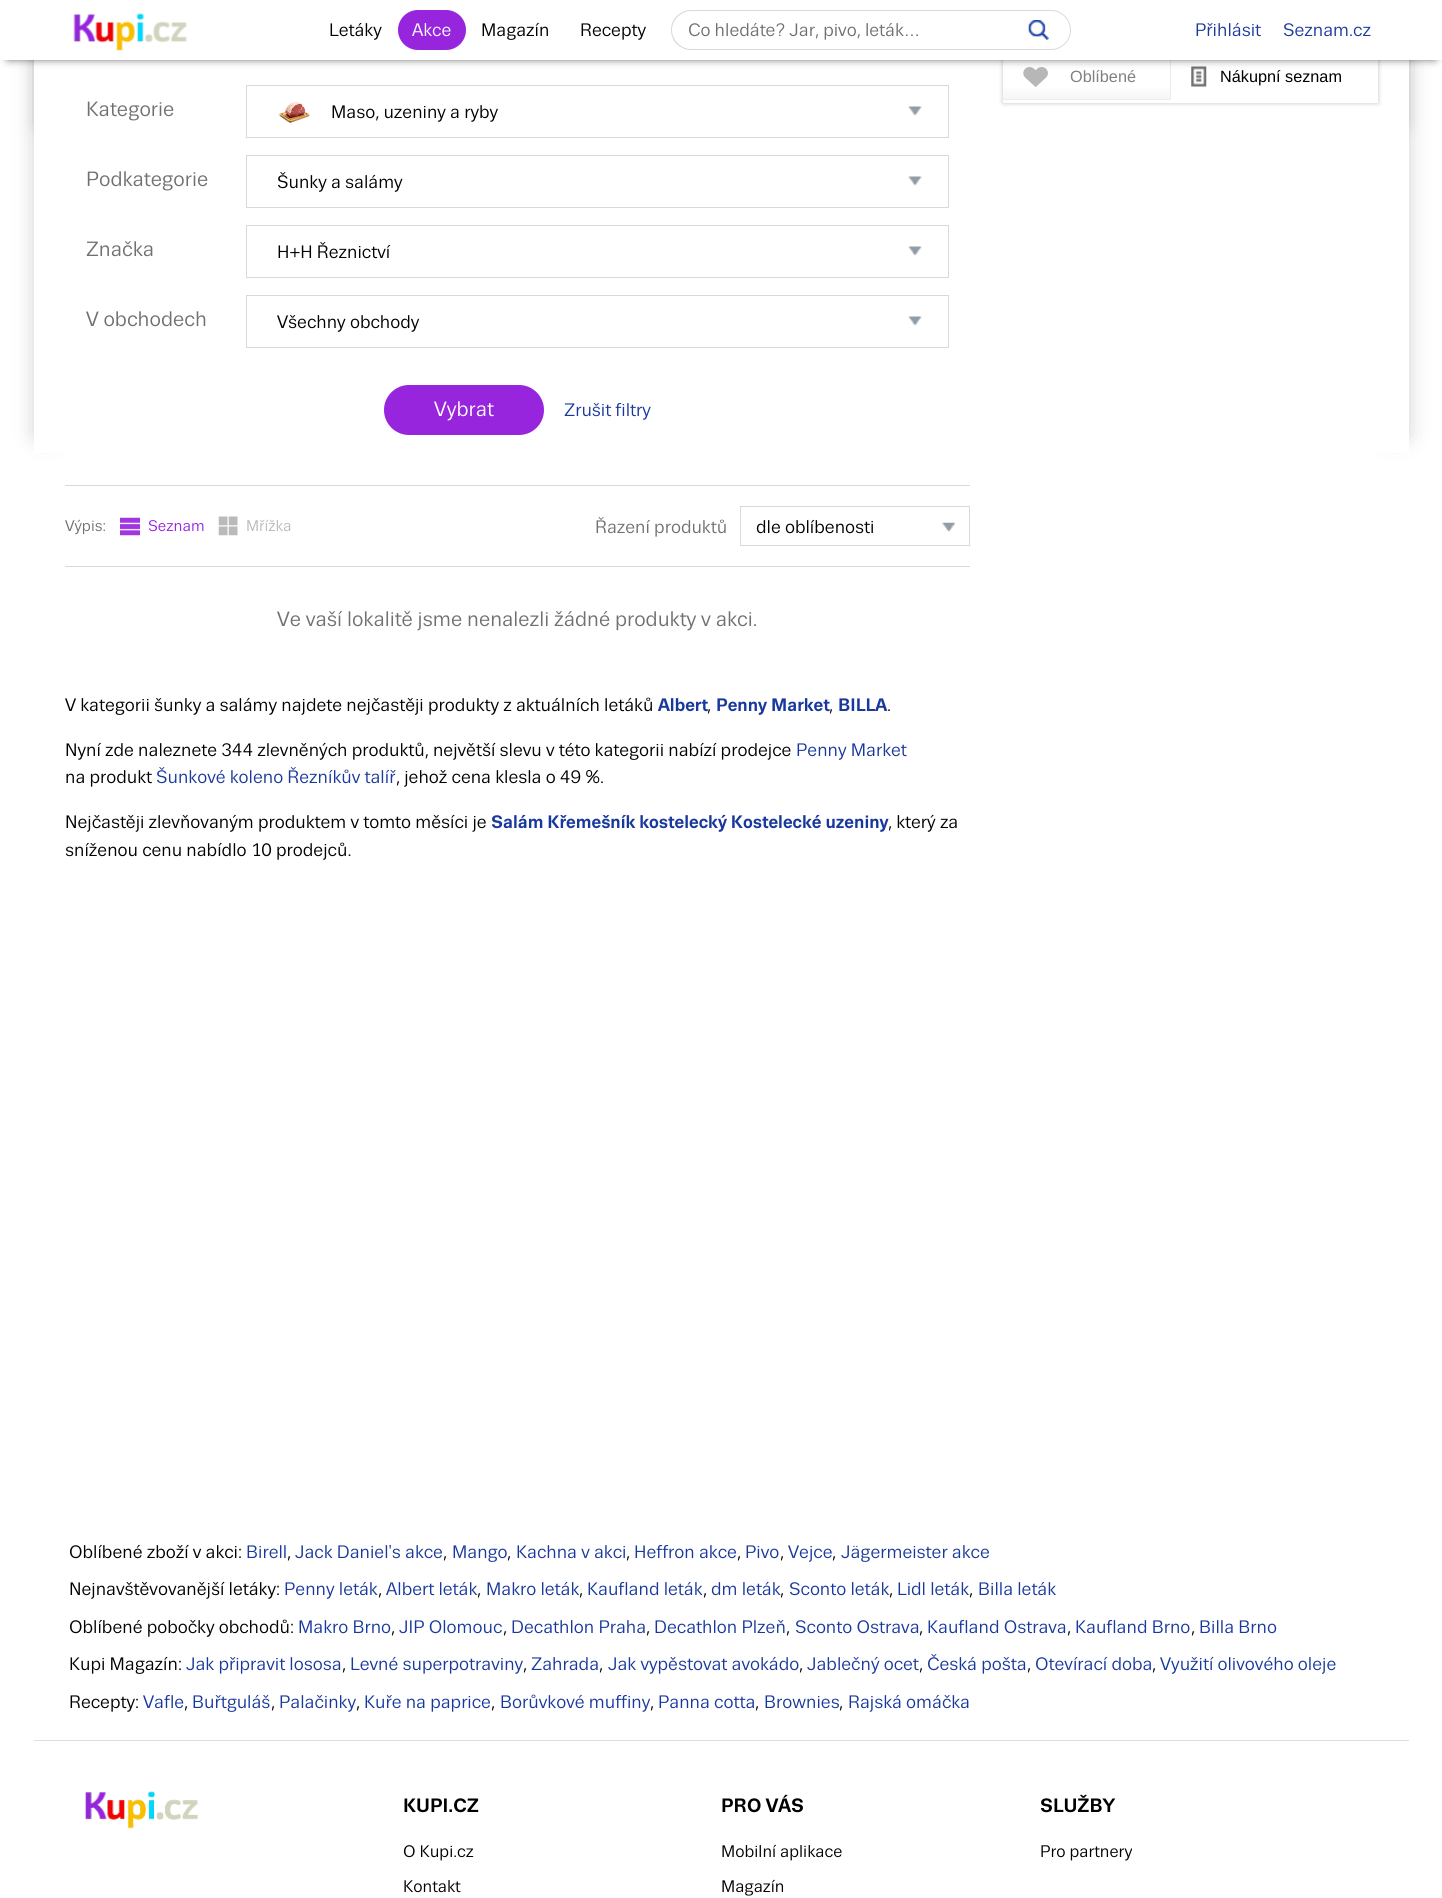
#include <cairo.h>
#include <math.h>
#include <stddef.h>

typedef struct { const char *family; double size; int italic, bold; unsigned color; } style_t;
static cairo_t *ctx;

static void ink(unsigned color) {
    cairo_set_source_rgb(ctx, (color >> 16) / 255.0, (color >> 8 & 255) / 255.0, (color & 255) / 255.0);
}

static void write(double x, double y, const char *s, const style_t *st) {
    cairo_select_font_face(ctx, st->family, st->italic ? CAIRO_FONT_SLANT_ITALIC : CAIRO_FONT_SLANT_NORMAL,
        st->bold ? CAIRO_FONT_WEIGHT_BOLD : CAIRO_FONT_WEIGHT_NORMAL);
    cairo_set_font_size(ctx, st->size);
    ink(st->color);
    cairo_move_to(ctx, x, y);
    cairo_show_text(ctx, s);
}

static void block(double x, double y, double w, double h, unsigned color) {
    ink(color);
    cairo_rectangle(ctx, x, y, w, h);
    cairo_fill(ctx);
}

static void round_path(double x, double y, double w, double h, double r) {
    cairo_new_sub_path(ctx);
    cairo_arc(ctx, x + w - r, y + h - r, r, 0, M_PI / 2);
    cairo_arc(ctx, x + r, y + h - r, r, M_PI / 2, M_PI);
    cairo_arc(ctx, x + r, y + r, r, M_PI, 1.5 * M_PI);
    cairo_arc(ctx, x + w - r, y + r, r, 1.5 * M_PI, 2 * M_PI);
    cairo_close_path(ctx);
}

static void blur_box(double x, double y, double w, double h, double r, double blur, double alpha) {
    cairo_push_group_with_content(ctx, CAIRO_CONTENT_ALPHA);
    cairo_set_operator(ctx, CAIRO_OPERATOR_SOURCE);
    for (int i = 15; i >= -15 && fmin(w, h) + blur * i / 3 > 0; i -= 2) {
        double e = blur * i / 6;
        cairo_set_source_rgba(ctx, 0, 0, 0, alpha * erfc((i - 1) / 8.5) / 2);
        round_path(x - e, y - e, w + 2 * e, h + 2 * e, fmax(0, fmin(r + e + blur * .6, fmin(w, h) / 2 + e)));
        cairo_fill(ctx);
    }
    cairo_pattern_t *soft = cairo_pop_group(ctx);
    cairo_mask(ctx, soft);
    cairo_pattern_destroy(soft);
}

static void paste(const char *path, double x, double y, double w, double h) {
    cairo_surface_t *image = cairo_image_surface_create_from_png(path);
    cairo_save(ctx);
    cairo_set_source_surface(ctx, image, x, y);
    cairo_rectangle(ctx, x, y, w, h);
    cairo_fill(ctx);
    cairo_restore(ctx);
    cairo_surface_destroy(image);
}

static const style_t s1 = {"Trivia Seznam", 17.5, 0, 0, 0x000000};
static const style_t s2 = {"Trivia Seznam", 17.5, 0, 0, 0xffffff};
static const style_t s3 = {"Trivia Seznam", 17.5, 0, 0, 0x707070};
static const style_t s4 = {"Trivia Seznam", 17.5, 0, 0, 0x18389c};
static const style_t s5 = {"Liberation Sans", 16.25, 0, 0, 0x808080};
static const style_t s6 = {"Liberation Sans", 16.25, 0, 0, 0x000000};
static const style_t s7 = {"Trivia Seznam", 20, 0, 0, 0x707070};
static const style_t s8 = {"Trivia Seznam", 20, 0, 0, 0xffffff};
static const style_t s9 = {"Trivia Seznam", 15, 0, 0, 0x707070};
static const style_t s10 = {"Trivia Seznam", 15, 0, 0, 0x9725dd};
static const style_t s11 = {"Trivia Seznam", 15, 0, 0, 0xb9b9b9};
static const style_t s12 = {"Trivia Seznam", 17.5, 0, 1, 0x18389c};
static const style_t s13 = {"Trivia Seznam", 18.75, 0, 1, 0x000000};
static const style_t s14 = {"Trivia Seznam", 16.25, 0, 0, 0x000000};

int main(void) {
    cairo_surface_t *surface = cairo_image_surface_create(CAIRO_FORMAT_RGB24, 1442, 1898);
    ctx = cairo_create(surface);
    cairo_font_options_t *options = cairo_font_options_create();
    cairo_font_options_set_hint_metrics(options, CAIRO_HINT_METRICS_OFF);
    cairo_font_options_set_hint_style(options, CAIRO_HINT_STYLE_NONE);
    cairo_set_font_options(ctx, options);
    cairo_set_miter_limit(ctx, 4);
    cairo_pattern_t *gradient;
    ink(0xffffff);
    cairo_paint(ctx);
    ink(0x000000);
    blur_box(40, -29, 1363, 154, 0, 9.5, 0.24);
    blur_box(38, -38, 18, 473, 0, 12.5, 0.24);
    blur_box(1386, -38, 19, 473, 0, 12.5, 0.24);
    block(34, 60, 1375, 393, 0xffffff);
    ink(0x000000);
    blur_box(1003, -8, 375, 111, 0, 2.5, 0.24);
    block(1003, 60, 375, 43, 0xffffff);
    ink(0xececec);
    cairo_new_path(ctx);
    cairo_move_to(ctx, 1171, 52);
    cairo_line_to(ctx, 1171, 100);
    cairo_line_to(ctx, 1170, 99);
    cairo_line_to(ctx, 1170, 54);
    cairo_close_path(ctx);
    cairo_fill(ctx);
    paste("pic3.png", 1023, 67, 25, 20);
    paste("pic4.png", 1191, 66, 16, 21);
    ink(0x000000);
    blur_box(9, 53, 1425, 4, 0, 5, 1);
    block(0, 0, 1442, 60, 0xffffff);
    paste("pic1.png", 73, 13, 114, 38);
    write(329, 36, "Letáky", &s1);
    ink(0x9725dd);
    round_path(398, 10, 68, 40, 20);
    cairo_fill(ctx);
    write(412, 36, "Akce", &s2);
    write(481, 36, "Magazín", &s1);
    write(580, 36, "Recepty", &s1);
    ink(0xd9d9d9);
    cairo_set_fill_rule(ctx, CAIRO_FILL_RULE_EVEN_ODD);
    cairo_new_path(ctx);
    cairo_move_to(ctx, 691, 10);
    cairo_line_to(ctx, 1011, 10);
    cairo_line_to(ctx, 1011, 50);
    cairo_line_to(ctx, 691, 50);
    cairo_curve_to(ctx, 680, 50, 671, 41, 671, 30);
    cairo_curve_to(ctx, 671, 19, 680, 10, 691, 10);
    cairo_close_path(ctx);
    cairo_move_to(ctx, 691, 11);
    cairo_line_to(ctx, 1011, 11);
    cairo_line_to(ctx, 1011, 49);
    cairo_line_to(ctx, 691, 49);
    cairo_curve_to(ctx, 681, 49, 672, 40, 672, 30);
    cairo_curve_to(ctx, 672, 20, 681, 11, 691, 11);
    cairo_close_path(ctx);
    cairo_fill(ctx);
    write(688, 36, "Co hledáte? Jar, pivo, leták…", &s3);
    ink(0xd9d9d9);
    cairo_new_path(ctx);
    cairo_move_to(ctx, 1011, 10);
    cairo_line_to(ctx, 1051, 10);
    cairo_curve_to(ctx, 1062, 10, 1071, 19, 1071, 30);
    cairo_curve_to(ctx, 1071, 41, 1062, 50, 1051, 50);
    cairo_line_to(ctx, 1011, 50);
    cairo_close_path(ctx);
    cairo_move_to(ctx, 1011, 11);
    cairo_line_to(ctx, 1051, 11);
    cairo_curve_to(ctx, 1062, 11, 1070, 20, 1070, 30);
    cairo_curve_to(ctx, 1070, 40, 1062, 49, 1051, 49);
    cairo_line_to(ctx, 1011, 49);
    cairo_close_path(ctx);
    cairo_fill(ctx);
    paste("pic2.png", 1028, 20, 21, 20);
    write(1195, 36, "Přihlásit", &s4);
    write(1283, 36, "Seznam.cz", &s4);
    gradient = cairo_pattern_create_linear(1087, 54, 1087, 99);
    cairo_pattern_add_color_stop_rgba(gradient, 0, 1, 1, 1, 1);
    cairo_pattern_add_color_stop_rgba(gradient, 0.67, 1, 1, 1, 1);
    cairo_pattern_add_color_stop_rgba(gradient, 1, 0.965, 0.965, 0.965, 1);
    cairo_set_source(ctx, gradient);
    cairo_pattern_destroy(gradient);
    cairo_rectangle(ctx, 1003, 88, 167, 11);
    cairo_fill(ctx);
    ink(0xececec);
    cairo_set_fill_rule(ctx, CAIRO_FILL_RULE_WINDING);
    cairo_new_path(ctx);
    cairo_move_to(ctx, 1171, 100);
    cairo_line_to(ctx, 1002, 100);
    cairo_line_to(ctx, 1004, 99);
    cairo_line_to(ctx, 1170, 99);
    cairo_close_path(ctx);
    cairo_fill(ctx);
    write(1070, 82, "Oblíbené", &s5);
    write(1220, 82, "Nákupní seznam", &s6);
    write(86, 116, "Kategorie", &s7);
    cairo_rectangle(ctx, 246.5, 85.5, 702, 52);
    ink(0xd9d9d9);
    cairo_set_line_width(ctx, 1);
    cairo_stroke(ctx);
    paste("pic5.png", 278, 101, 33, 22);
    write(331, 118, "Maso, uzeniny a ryby", &s1);
    paste("pic6.png", 908, 106, 14, 10);
    write(86, 186, "Podkategorie", &s7);
    cairo_rectangle(ctx, 246.5, 155.5, 702, 52);
    ink(0xd9d9d9);
    cairo_stroke(ctx);
    write(277, 188, "Šunky a salámy", &s1);
    paste("pic6.png", 908, 176, 14, 10);
    write(86, 256, "Značka", &s7);
    cairo_rectangle(ctx, 246.5, 225.5, 702, 52);
    ink(0xd9d9d9);
    cairo_stroke(ctx);
    write(277, 258, "H+H Řeznictví", &s1);
    paste("pic6.png", 908, 246, 14, 10);
    write(86, 326, "V obchodech", &s7);
    cairo_rectangle(ctx, 246.5, 295.5, 702, 52);
    ink(0xd9d9d9);
    cairo_stroke(ctx);
    write(277, 328, "Všechny obchody", &s1);
    paste("pic6.png", 908, 316, 14, 10);
    ink(0x9725dd);
    round_path(384, 385, 160, 50, 25);
    cairo_fill(ctx);
    write(434, 416, "Vybrat", &s8);
    write(564, 416, "Zrušit filtry", &s4);
    block(65, 485, 905, 1, 0xd9d9d9);
    write(65, 531, "Výpis:", &s9);
    paste("pic7.png", 120, 517, 20, 19);
    write(148, 531, "Seznam", &s10);
    paste("pic8.png", 218, 516, 20, 20);
    write(246, 531, "Mřížka", &s11);
    write(595, 533, "Řazení produktů", &s3);
    cairo_rectangle(ctx, 740.5, 506.5, 229, 39);
    ink(0xd9d9d9);
    cairo_stroke(ctx);
    write(756, 533, "dle oblíbenosti", &s1);
    paste("pic9.png", 942, 522, 13, 10);
    block(65, 566, 905, 1, 0xd9d9d9);
    write(277, 626, "Ve vaší lokalitě jsme nenalezli žádné produkty v akci.", &s7);
    write(65, 711, "V kategorii šunky a salámy najdete nejčastěji produkty z aktuálních letáků", &s1);
    write(658, 711, "Albert", &s12);
    write(716, 711, "Penny Market", &s12);
    write(838, 711, "BILLA", &s12);
    write(707, 711, ",", &s1);
    write(829, 711, ",", &s1);
    write(887, 711, ".", &s1);
    write(65, 756, "Nyní zde naleznete 344 zlevněných produktů, největší slevu v této kategorii nabízí prodejce", &s1);
    write(796, 756, "Penny Market", &s4);
    write(65, 783, "na produkt", &s1);
    write(156, 783, "Šunkové koleno Řezníkův talíř", &s4);
    write(396, 783, ", jehož cena klesla o 49 %.", &s1);
    write(65, 828, "Nejčastěji zlevňovaným produktem v tomto měsíci je", &s1);
    write(491, 828, "Salám Křemešník kostelecký Kostelecké uzeniny", &s12);
    write(888, 828, ", který za", &s1);
    write(65, 856, "sníženou cenu nabídlo 10 prodejců.", &s1);
    write(69, 1558, "Oblíbené zboží v akci:", &s1);
    write(246, 1558, "Birell", &s4);
    write(287, 1558, ",", &s1);
    write(295, 1558, "Jack Daniel's akce", &s4);
    write(443, 1558, ",", &s1);
    write(452, 1558, "Mango", &s4);
    write(507, 1558, ",", &s1);
    write(516, 1558, "Kachna v akci", &s4);
    write(626, 1558, ",", &s1);
    write(634, 1558, "Heffron akce", &s4);
    write(737, 1558, ",", &s1);
    write(745, 1558, "Pivo", &s4);
    write(780, 1558, ",", &s1);
    write(788, 1558, "Vejce", &s4);
    write(832, 1558, ",", &s1);
    write(841, 1558, "Jägermeister akce", &s4);
    write(69, 1595, "Nejnavštěvovanější letáky:", &s1);
    write(284, 1595, "Penny leták", &s4);
    write(378, 1595, ",", &s1);
    write(386, 1595, "Albert leták", &s4);
    write(477, 1595, ",", &s1);
    write(486, 1595, "Makro leták", &s4);
    write(579, 1595, ",", &s1);
    write(587, 1595, "Kaufland leták", &s4);
    write(703, 1595, ",", &s1);
    write(711, 1595, "dm leták", &s4);
    write(780, 1595, ",", &s1);
    write(789, 1595, "Sconto leták", &s4);
    write(889, 1595, ",", &s1);
    write(897, 1595, "Lidl leták", &s4);
    write(969, 1595, ",", &s1);
    write(978, 1595, "Billa leták", &s4);
    write(69, 1633, "Oblíbené pobočky obchodů:", &s1);
    write(298, 1633, "Makro Brno", &s4);
    write(391, 1633, ",", &s1);
    write(399, 1633, "JIP Olomouc", &s4);
    write(503, 1633, ",", &s1);
    write(511, 1633, "Decathlon Praha", &s4);
    write(646, 1633, ",", &s1);
    write(654, 1633, "Decathlon Plzeň", &s4);
    write(786, 1633, ",", &s1);
    write(795, 1633, "Sconto Ostrava", &s4);
    write(919, 1633, ",", &s1);
    write(927, 1633, "Kaufland Ostrava", &s4);
    write(1067, 1633, ",", &s1);
    write(1075, 1633, "Kaufland Brno", &s4);
    write(1191, 1633, ",", &s1);
    write(1199, 1633, "Billa Brno", &s4);
    write(69, 1670, "Kupi Magazín:", &s1);
    write(186, 1670, "Jak připravit lososa", &s4);
    write(342, 1670, ",", &s1);
    write(350, 1670, "Levné superpotraviny", &s4);
    write(523, 1670, ",", &s1);
    write(531, 1670, "Zahrada", &s4);
    write(599, 1670, ",", &s1);
    write(608, 1670, "Jak vypěstovat avokádo", &s4);
    write(799, 1670, ",", &s1);
    write(807, 1670, "Jablečný ocet", &s4);
    write(919, 1670, ",", &s1);
    write(927, 1670, "Česká pošta", &s4);
    write(1027, 1670, ",", &s1);
    write(1035, 1670, "Otevírací doba", &s4);
    write(1152, 1670, ",", &s1);
    write(1160, 1670, "Využití olivového oleje", &s4);
    write(69, 1708, "Recepty:", &s1);
    write(143, 1708, "Vafle", &s4);
    write(184, 1708, ",", &s1);
    write(192, 1708, "Buřtguláš", &s4);
    write(271, 1708, ",", &s1);
    write(279, 1708, "Palačinky", &s4);
    write(356, 1708, ",", &s1);
    write(364, 1708, "Kuře na paprice", &s4);
    write(491, 1708, ",", &s1);
    write(500, 1708, "Borůvkové muffiny", &s4);
    write(650, 1708, ",", &s1);
    write(658, 1708, "Panna cotta", &s4);
    write(755, 1708, ",", &s1);
    write(764, 1708, "Brownies", &s4);
    write(839, 1708, ",", &s1);
    write(848, 1708, "Rajská omáčka", &s4);
    block(34, 1740, 1375, 1, 0xdbdfe2);
    paste("pic10.png", 85, 1791, 113, 38);
    write(403, 1812, "KUPI.CZ", &s13);
    write(403, 1857, "O Kupi.cz", &s14);
    write(403, 1892, "Kontakt", &s14);
    write(721, 1812, "PRO VÁS", &s13);
    write(721, 1857, "Mobilní aplikace", &s14);
    write(721, 1892, "Magazín", &s14);
    write(1040, 1812, "SLUŽBY", &s13);
    write(1040, 1857, "Pro partnery", &s14);
    cairo_surface_write_to_png(surface, "screenshot.png");
    cairo_font_options_destroy(options);
    cairo_destroy(ctx);
    cairo_surface_destroy(surface);
    return 0;
}
